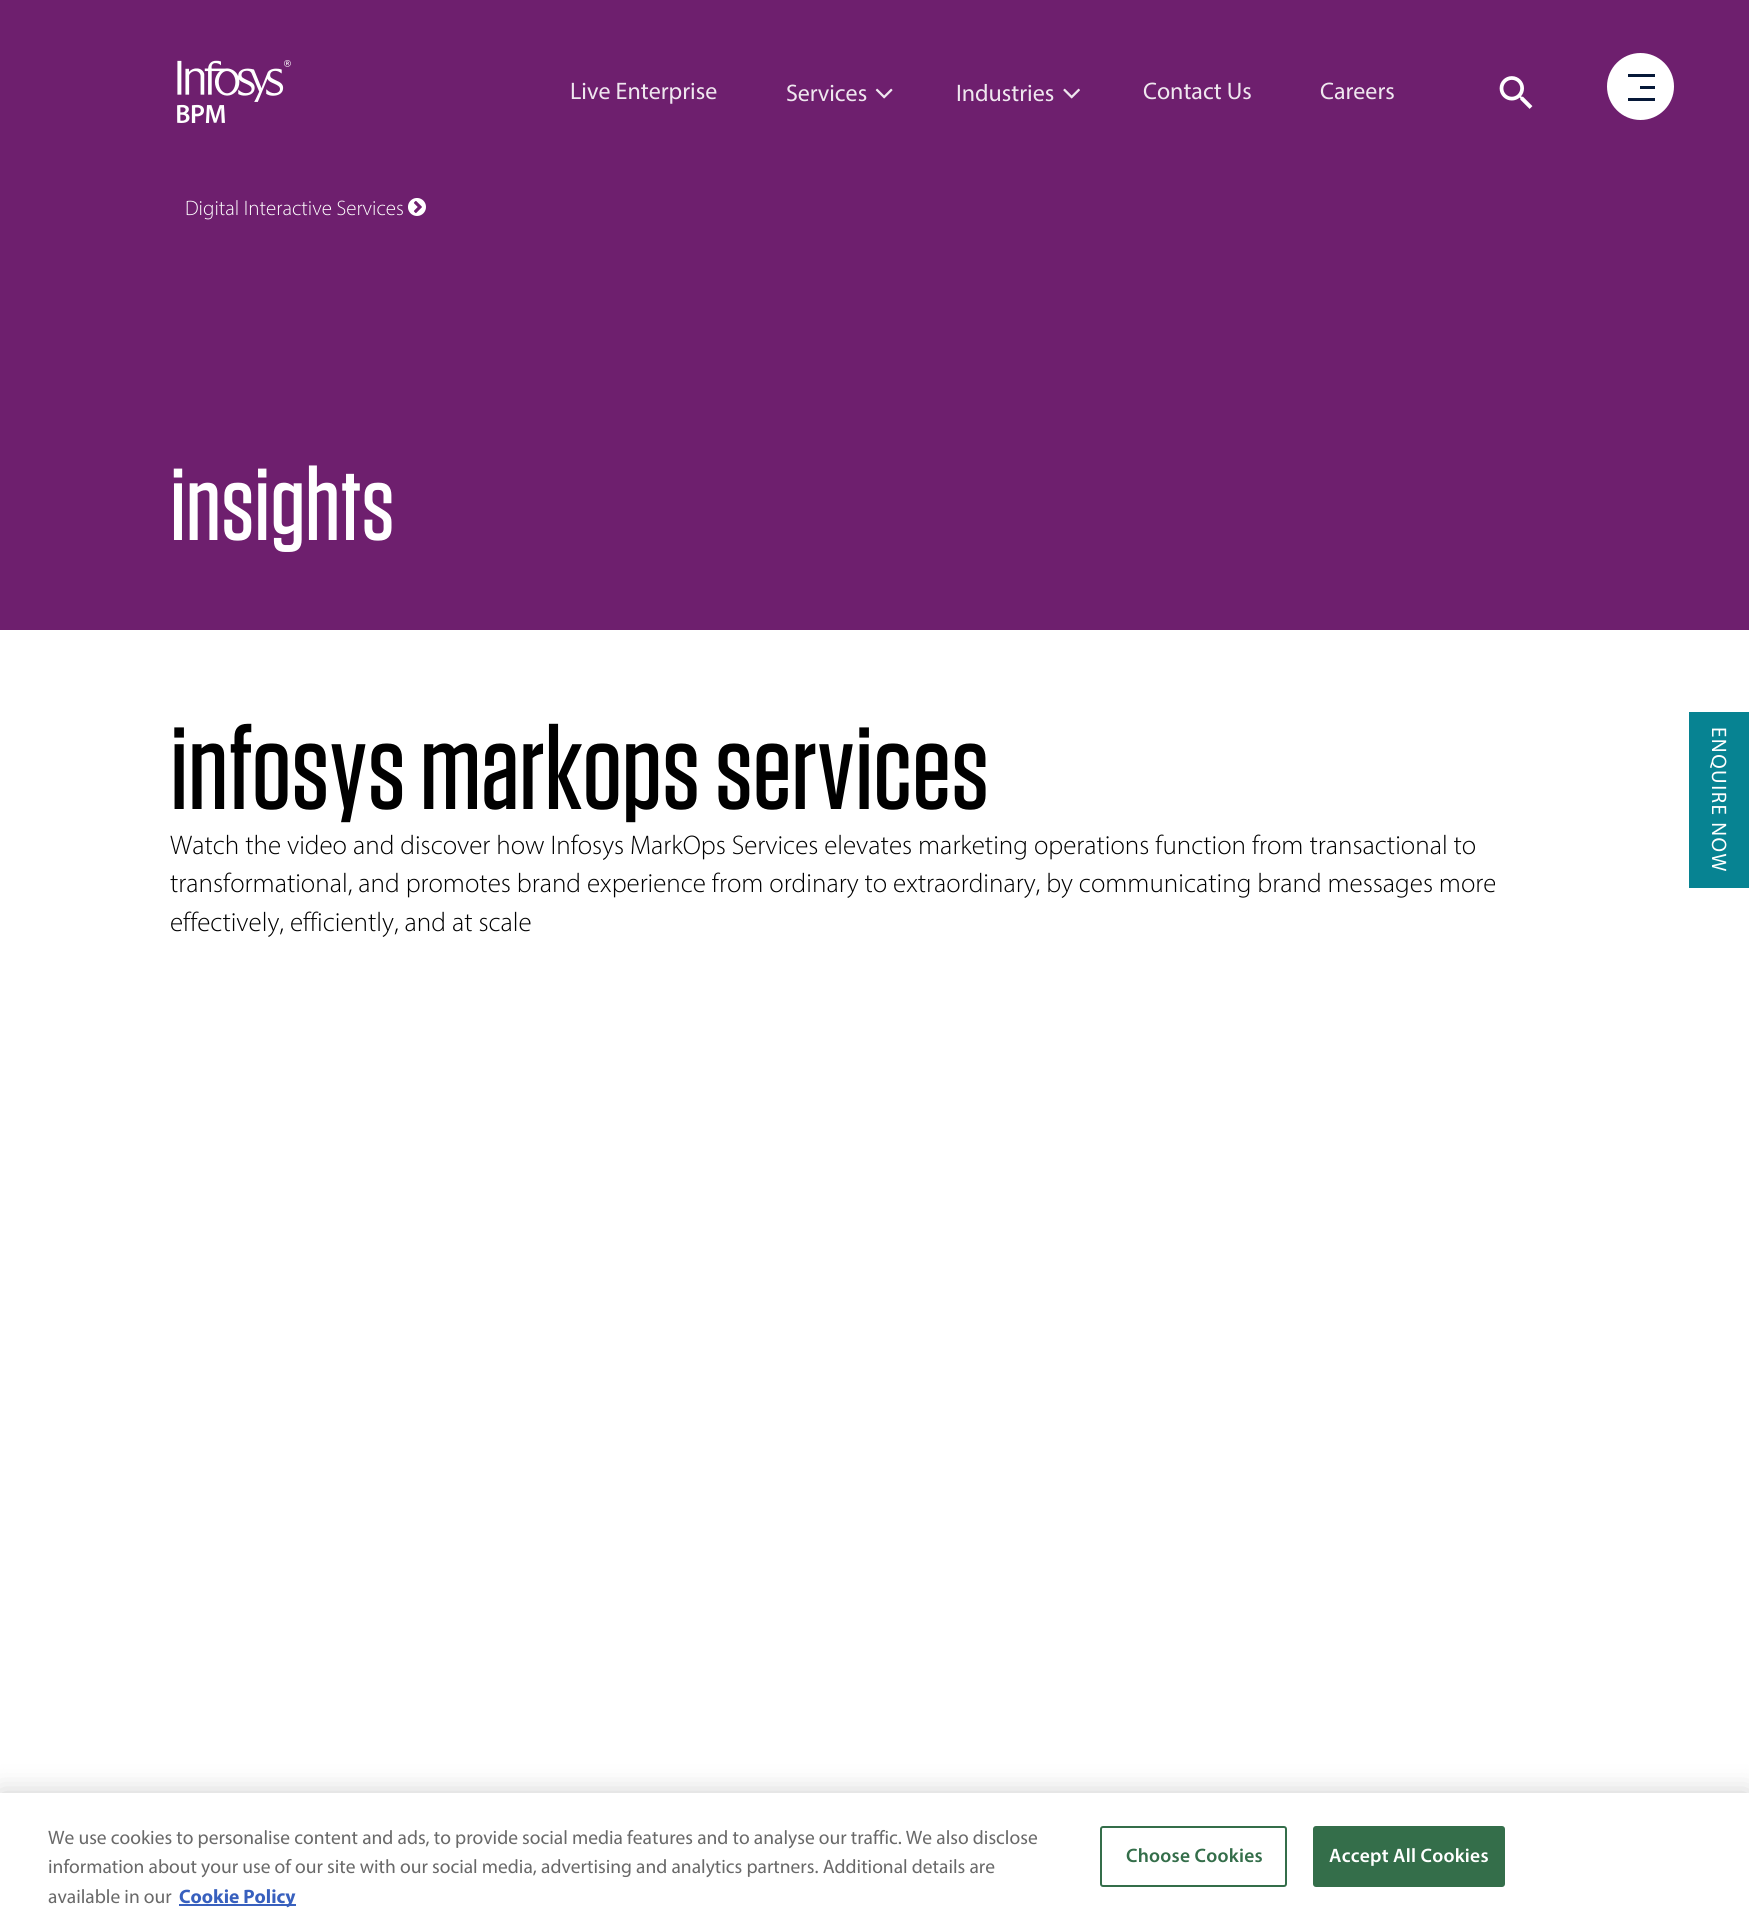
#include <cairo.h>
#include <math.h>
#include <stddef.h>

typedef struct { const char *family; double size; int italic, bold; unsigned color; } style_t;
static cairo_t *ctx;

static void ink(unsigned color) {
    cairo_set_source_rgb(ctx, (color >> 16) / 255.0, (color >> 8 & 255) / 255.0, (color & 255) / 255.0);
}

static void write(double x, double y, const char *s, const style_t *st) {
    cairo_select_font_face(ctx, st->family, st->italic ? CAIRO_FONT_SLANT_ITALIC : CAIRO_FONT_SLANT_NORMAL,
        st->bold ? CAIRO_FONT_WEIGHT_BOLD : CAIRO_FONT_WEIGHT_NORMAL);
    cairo_set_font_size(ctx, st->size);
    ink(st->color);
    cairo_move_to(ctx, x, y);
    cairo_show_text(ctx, s);
}

static void write_spaced(double x, double y, const char *s, double letter, double word) {
    cairo_move_to(ctx, x, y);
    while (*s) {
        char ch[5] = {0};
        int n = 0;
        do ch[n++] = *s++; while ((*s & 0xC0) == 0x80);
        cairo_show_text(ctx, ch);
        cairo_rel_move_to(ctx, letter + word * (*ch == ' '), 0);
    }
}

static void block(double x, double y, double w, double h, unsigned color) {
    ink(color);
    cairo_rectangle(ctx, x, y, w, h);
    cairo_fill(ctx);
}

static void round_path(double x, double y, double w, double h, double r) {
    cairo_new_sub_path(ctx);
    cairo_arc(ctx, x + w - r, y + h - r, r, 0, M_PI / 2);
    cairo_arc(ctx, x + r, y + h - r, r, M_PI / 2, M_PI);
    cairo_arc(ctx, x + r, y + r, r, M_PI, 1.5 * M_PI);
    cairo_arc(ctx, x + w - r, y + r, r, 1.5 * M_PI, 2 * M_PI);
    cairo_close_path(ctx);
}

static void blur_box(double x, double y, double w, double h, double r, double blur, double alpha) {
    cairo_push_group_with_content(ctx, CAIRO_CONTENT_ALPHA);
    cairo_set_operator(ctx, CAIRO_OPERATOR_SOURCE);
    for (int i = 15; i >= -15 && fmin(w, h) + blur * i / 3 > 0; i -= 2) {
        double e = blur * i / 6;
        cairo_set_source_rgba(ctx, 0, 0, 0, alpha * erfc((i - 1) / 8.5) / 2);
        round_path(x - e, y - e, w + 2 * e, h + 2 * e, fmax(0, fmin(r + e + blur * .6, fmin(w, h) / 2 + e)));
        cairo_fill(ctx);
    }
    cairo_pattern_t *soft = cairo_pop_group(ctx);
    cairo_mask(ctx, soft);
    cairo_pattern_destroy(soft);
}

static void paste(const char *path, double x, double y, double w, double h) {
    cairo_surface_t *image = cairo_image_surface_create_from_png(path);
    cairo_save(ctx);
    cairo_set_source_surface(ctx, image, x, y);
    cairo_rectangle(ctx, x, y, w, h);
    cairo_fill(ctx);
    cairo_restore(ctx);
    cairo_surface_destroy(image);
}

static const style_t s1 = {"Myriad", 24, 0, 0, 0xefe7ef};
static const style_t s2 = {"Myriad Light", 21, 0, 0, 0xffffff};
static const style_t s3 = {"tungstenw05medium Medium", 105, 0, 0, 0xffffff};
static const style_t s4 = {"tungstenw05medium Medium", 120, 0, 0, 0x000000};
static const style_t s5 = {"Myriad Light", 27, 0, 0, 0x000000};
static const style_t s6 = {"Myriad", 19.5, 0, 0, 0x696969};
static const style_t s7 = {"Myriad", 19.5, 0, 1, 0x3860be};

int main(void) {
    cairo_surface_t *surface = cairo_image_surface_create(CAIRO_FORMAT_RGB24, 1749, 1925);
    ctx = cairo_create(surface);
    cairo_font_options_t *options = cairo_font_options_create();
    cairo_font_options_set_hint_metrics(options, CAIRO_HINT_METRICS_OFF);
    cairo_font_options_set_hint_style(options, CAIRO_HINT_STYLE_NONE);
    cairo_set_font_options(ctx, options);
    cairo_set_miter_limit(ctx, 4);
    ink(0xffffff);
    cairo_paint(ctx);
    block(0, 0, 1749, 630, 0x6e1f6e);
    paste("pic1.png", 177, 60, 114, 63);
    write(570, 99, "Live Enterprise", &s1);
    write(786, 101, "Services", &s1);
    paste("pic2.png", 875, 88, 18, 11);
    write(956, 101, "Industries", &s1);
    paste("pic3.png", 1063, 88, 17, 11);
    write(1143, 99, "Contact Us", &s1);
    write(1320, 99, "Careers", &s1);
    paste("pic4.png", 1499, 76, 34, 33);
    ink(0xffffff);
    cairo_arc(ctx, 1640.5, 86.5, 33.5, 0, 2 * M_PI);
    cairo_fill(ctx);
    block(1628, 74, 27, 3, 0x061838);
    block(1640, 86, 15, 3, 0x061838);
    block(1628, 98, 27, 3, 0x061838);
    write(185, 215, "Digital Interactive Services", &s2);
    paste("pic5.png", 408, 198, 18, 18);
    write(170, 540, "insights", &s3);
    write(170, 809, "infosys markops services", &s4);
    write(170, 854, "Watch the video and discover how Infosys MarkOps Services elevates marketing operations function from transactional to", &s5);
    write(170, 892, "transformational, and promotes brand experience from ordinary to extraordinary, by communicating brand messages more", &s5);
    write(170, 931, "effectively, efficiently, and at scale", &s5);
    block(1689, 712, 60, 176, 0x078392);
    cairo_select_font_face(ctx, "Myriad", CAIRO_FONT_SLANT_NORMAL, CAIRO_FONT_WEIGHT_NORMAL);
    cairo_set_font_size(ctx, 21);
    ink(0xffffff);
    cairo_save(ctx);
    cairo_translate(ctx, 1712, 727);
    cairo_rotate(ctx, 90 * M_PI / 180);
    write_spaced(0, 0, "ENQUIRE NOW", 1.5, 0);
    cairo_restore(ctx);
    ink(0x000000);
    blur_box(0, 1793, 1749, 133, 0, 13.5, 0.2);
    block(0, 1793, 1749, 132, 0xffffff);
    write(48, 1844, "We use cookies to personalise content and ads, to provide social media features and to analyse our traffic. We also disclose", &s6);
    write(48, 1873, "information about your use of our site with our social media, advertising and analytics partners. Additional details are", &s6);
    write(48, 1903, "available in our", &s6);
    block(179, 1904, 117, 2, 0x3860be);
    write(179, 1903, "Cookie Policy", &s7);
    round_path(1101, 1827, 185, 59, 2);
    ink(0x346e4a);
    cairo_stroke(ctx);
    cairo_select_font_face(ctx, "Myriad SemiBold", CAIRO_FONT_SLANT_NORMAL, CAIRO_FONT_WEIGHT_NORMAL);
    write_spaced(1126, 1862, "Choose Cookies", 0.25, 0);
    round_path(1314, 1827, 190, 59, 2);
    cairo_fill_preserve(ctx);
    cairo_stroke(ctx);
    ink(0xffffff);
    write_spaced(1329, 1862, "Accept All Cookies", 0.25, 0);
    cairo_surface_write_to_png(surface, "screenshot.png");
    cairo_font_options_destroy(options);
    cairo_destroy(ctx);
    cairo_surface_destroy(surface);
    return 0;
}
